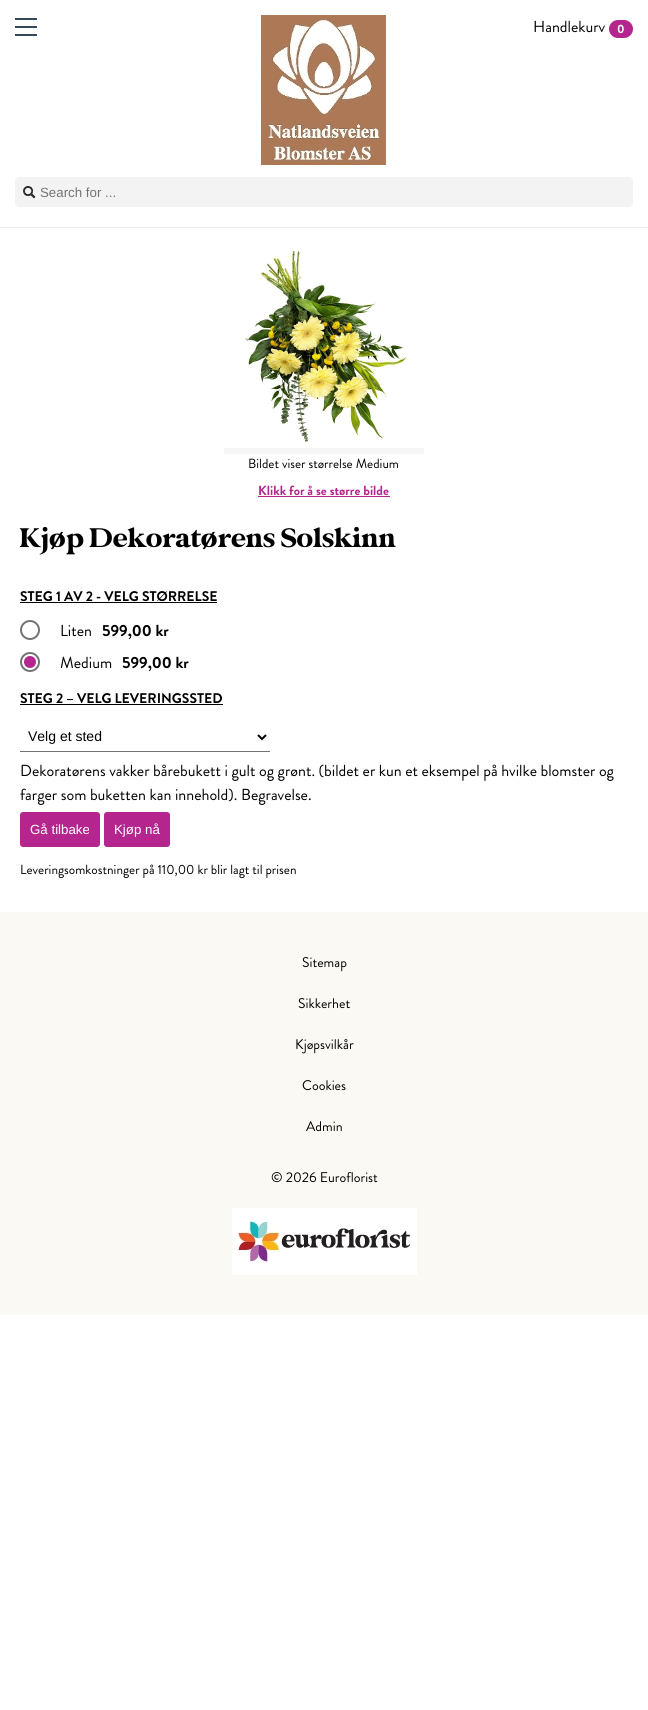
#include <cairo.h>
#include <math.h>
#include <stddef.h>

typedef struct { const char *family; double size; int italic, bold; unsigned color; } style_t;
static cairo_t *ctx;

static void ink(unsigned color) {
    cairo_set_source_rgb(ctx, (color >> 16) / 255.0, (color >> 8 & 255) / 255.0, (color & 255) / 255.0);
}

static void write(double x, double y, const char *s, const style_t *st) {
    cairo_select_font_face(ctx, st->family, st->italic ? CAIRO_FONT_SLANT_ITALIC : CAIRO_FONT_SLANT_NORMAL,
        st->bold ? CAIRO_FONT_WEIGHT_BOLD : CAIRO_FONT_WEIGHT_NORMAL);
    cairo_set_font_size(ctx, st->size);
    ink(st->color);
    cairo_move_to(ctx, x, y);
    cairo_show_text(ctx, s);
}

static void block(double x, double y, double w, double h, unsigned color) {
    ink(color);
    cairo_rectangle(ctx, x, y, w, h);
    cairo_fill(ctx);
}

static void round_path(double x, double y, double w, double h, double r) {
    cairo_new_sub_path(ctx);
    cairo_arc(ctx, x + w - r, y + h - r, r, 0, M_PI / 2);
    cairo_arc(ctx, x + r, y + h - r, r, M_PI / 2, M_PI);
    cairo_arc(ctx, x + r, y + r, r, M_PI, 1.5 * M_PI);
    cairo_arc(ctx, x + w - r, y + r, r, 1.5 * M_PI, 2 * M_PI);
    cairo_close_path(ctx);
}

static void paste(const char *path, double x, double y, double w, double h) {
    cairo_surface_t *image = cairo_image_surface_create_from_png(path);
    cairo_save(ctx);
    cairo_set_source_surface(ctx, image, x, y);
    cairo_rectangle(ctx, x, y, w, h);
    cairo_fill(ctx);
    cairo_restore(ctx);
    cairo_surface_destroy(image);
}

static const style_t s1 = {"Brandon Grotesque", 16, 0, 0, 0x000000};
static const style_t s2 = {"Brandon Grotesque", 12, 0, 1, 0xffffff};
static const style_t s3 = {"Liberation Sans", 13.3, 0, 0, 0x757575};
static const style_t s4 = {"Brandon Grotesque", 13.3, 0, 0, 0x000000};
static const style_t s5 = {"Brandon Grotesque", 13.3, 0, 1, 0xb5258e};
static const style_t s6 = {"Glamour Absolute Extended", 30, 0, 0, 0x000000};
static const style_t s7 = {"Brandon Grotesque", 14, 0, 1, 0x000000};
static const style_t s8 = {"Brandon Grotesque", 16, 0, 1, 0x000000};
static const style_t s9 = {"Liberation Sans", 14, 0, 0, 0x000000};
static const style_t s10 = {"Liberation Sans", 13.3, 0, 0, 0xffffff};
static const style_t s11 = {"Brandon Grotesque", 14, 0, 0, 0x000000};

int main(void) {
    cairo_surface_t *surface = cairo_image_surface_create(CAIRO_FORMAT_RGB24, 648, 1710);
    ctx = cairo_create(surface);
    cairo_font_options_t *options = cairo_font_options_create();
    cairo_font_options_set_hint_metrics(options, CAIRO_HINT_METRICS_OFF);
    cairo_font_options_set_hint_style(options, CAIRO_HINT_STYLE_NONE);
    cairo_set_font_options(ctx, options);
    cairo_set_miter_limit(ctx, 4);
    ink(0xffffff);
    cairo_paint(ctx);
    block(0, 227, 648, 1, 0xebebeb);
    block(15, 18, 22, 2, 0x34485a);
    block(15, 26, 22, 2, 0x34485a);
    block(15, 34, 22, 2, 0x34485a);
    paste("pic1.png", 261, 15, 125, 150);
    write(533, 32, "Handlekurv", &s1);
    ink(0xb5258e);
    round_path(609, 20, 24, 18, 9);
    cairo_fill(ctx);
    write(617, 33, "0", &s2);
    ink(0xf3f3f3);
    round_path(15, 177, 618, 30, 5);
    cairo_fill(ctx);
    paste("pic2.png", 23, 186, 13, 13);
    write(40, 197, "Search for ...", &s3);
    block(224, 448, 200, 6, 0xf6f6f6);
    paste("pic3.png", 224, 248, 200, 200);
    write(248, 468, "Bildet viser størrelse Medium", &s4);
    write(258, 495, "Klikk for å se større bilde", &s5);
    block(258, 496, 132, 1, 0xb5258e);
    write(20, 547, "Kjøp Dekoratørens Solskinn", &s6);
    write(20, 601, "STEG 1 AV 2 - VELG STØRRELSE", &s7);
    block(20, 602, 197, 1, 0x000000);
    cairo_new_path(ctx);
    cairo_arc(ctx, 30, 630, 9, 0, 2 * M_PI);
    ink(0x737373);
    cairo_stroke(ctx);
    write(60, 636, "Liten", &s1);
    write(102, 636, "599,00 kr", &s8);
    cairo_new_path(ctx);
    cairo_arc(ctx, 30, 662, 9, 0, 2 * M_PI);
    ink(0x737373);
    cairo_stroke(ctx);
    ink(0xb5258e);
    cairo_arc(ctx, 30, 662, 6, 0, 2 * M_PI);
    cairo_fill(ctx);
    write(60, 668, "Medium", &s1);
    write(122, 668, "599,00 kr", &s8);
    write(20, 703, "STEG 2 – VELG LEVERINGSSTED", &s7);
    block(20, 704, 203, 1, 0x000000);
    block(20, 751, 250, 1, 0x737373);
    cairo_new_path(ctx);
    cairo_move_to(ctx, 258, 735);
    cairo_line_to(ctx, 262, 739);
    cairo_line_to(ctx, 266, 735);
    ink(0x000000);
    cairo_stroke(ctx);
    write(28, 741, "Velg et sted", &s9);
    write(20, 776, "Dekoratørens vakker bårebukett i gult og grønt. (bildet er kun et eksempel på hvilke blomster og", &s1);
    write(20, 800, "farger som buketten kan innehold). Begravelse.", &s1);
    ink(0xb5258e);
    round_path(20, 812, 80, 35, 3);
    cairo_fill(ctx);
    write(30, 834, "Gå tilbake", &s10);
    ink(0xb5258e);
    round_path(104, 812, 66, 35, 3);
    cairo_fill(ctx);
    write(114, 834, "Kjøp nå", &s10);
    write(20, 874, "Leveringsomkostninger på 110,00 kr blir lagt til prisen", &s4);
    block(0, 912, 648, 403, 0xfaf9f3);
    write(302, 967, "Sitemap", &s11);
    write(298, 1008, "Sikkerhet", &s11);
    write(295, 1049, "Kjøpsvilkår", &s11);
    write(302, 1090, "Cookies", &s11);
    write(306, 1131, "Admin", &s11);
    write(271, 1182, "© 2026 Euroflorist", &s11);
    paste("pic4.png", 232, 1208, 185, 67);
    cairo_surface_write_to_png(surface, "screenshot.png");
    cairo_font_options_destroy(options);
    cairo_destroy(ctx);
    cairo_surface_destroy(surface);
    return 0;
}
